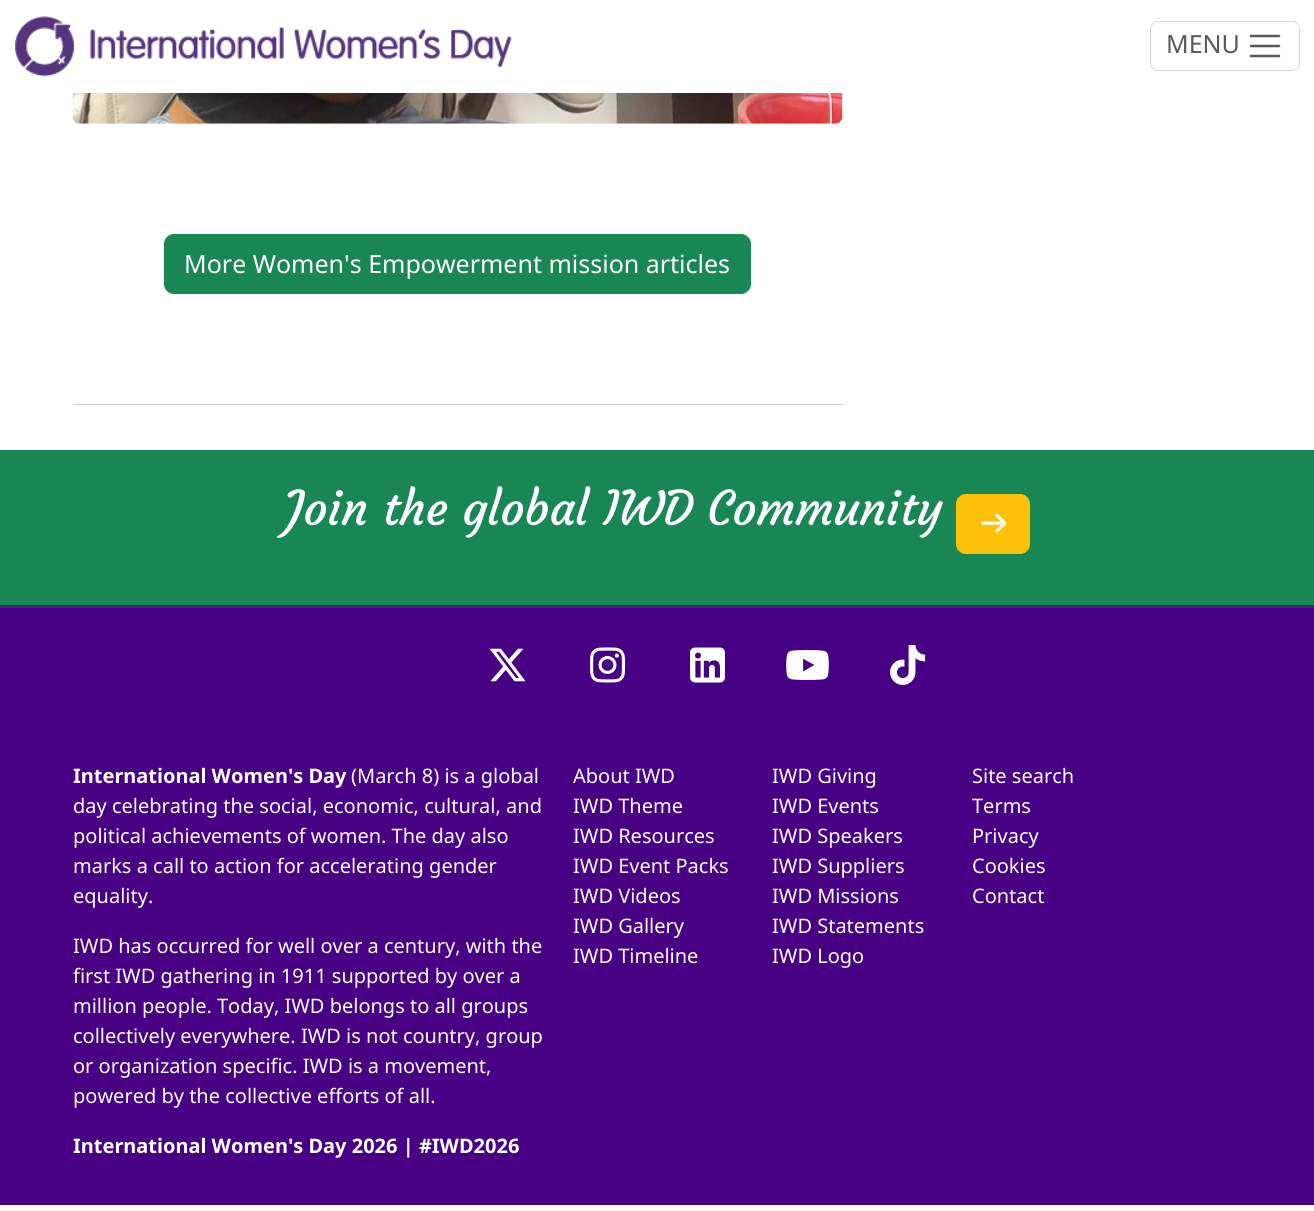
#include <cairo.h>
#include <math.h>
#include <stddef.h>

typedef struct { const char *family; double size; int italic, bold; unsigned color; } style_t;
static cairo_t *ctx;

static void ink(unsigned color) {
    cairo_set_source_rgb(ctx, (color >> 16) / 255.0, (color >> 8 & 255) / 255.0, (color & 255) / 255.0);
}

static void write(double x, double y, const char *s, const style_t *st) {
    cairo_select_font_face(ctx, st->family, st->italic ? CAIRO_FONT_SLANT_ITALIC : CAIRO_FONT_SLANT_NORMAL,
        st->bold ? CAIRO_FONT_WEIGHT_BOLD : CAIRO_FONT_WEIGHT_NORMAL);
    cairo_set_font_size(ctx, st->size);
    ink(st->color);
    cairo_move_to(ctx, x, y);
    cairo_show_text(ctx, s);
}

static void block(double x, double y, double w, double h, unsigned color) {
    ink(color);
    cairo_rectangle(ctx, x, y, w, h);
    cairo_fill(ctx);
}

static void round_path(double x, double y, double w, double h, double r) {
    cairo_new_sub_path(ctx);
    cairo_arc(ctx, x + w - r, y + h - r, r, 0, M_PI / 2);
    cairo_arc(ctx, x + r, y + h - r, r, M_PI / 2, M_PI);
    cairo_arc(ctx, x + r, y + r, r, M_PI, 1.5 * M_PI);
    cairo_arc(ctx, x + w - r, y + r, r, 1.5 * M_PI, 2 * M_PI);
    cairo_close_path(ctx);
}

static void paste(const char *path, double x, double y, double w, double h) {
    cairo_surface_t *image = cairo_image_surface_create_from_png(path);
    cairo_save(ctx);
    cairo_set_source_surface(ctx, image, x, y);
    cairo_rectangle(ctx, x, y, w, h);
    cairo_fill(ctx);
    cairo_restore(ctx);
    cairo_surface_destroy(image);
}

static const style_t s1 = {"Noto Sans", 25, 0, 0, 0x595959};
static const style_t s2 = {"Noto Sans", 25, 0, 0, 0xffffff};
static const style_t s3 = {"Courgette", 47.25, 0, 0, 0xffffff};
static const style_t s4 = {"Noto Sans", 20, 0, 1, 0xffffff};
static const style_t s5 = {"Noto Sans", 20, 0, 0, 0xffffff};

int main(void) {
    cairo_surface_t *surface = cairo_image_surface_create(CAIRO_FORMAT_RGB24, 1314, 1211);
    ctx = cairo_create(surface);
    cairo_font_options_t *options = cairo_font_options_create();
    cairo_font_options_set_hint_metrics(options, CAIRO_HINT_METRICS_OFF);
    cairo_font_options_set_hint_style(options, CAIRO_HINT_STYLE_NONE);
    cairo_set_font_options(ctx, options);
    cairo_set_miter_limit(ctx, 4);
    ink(0xffffff);
    cairo_paint(ctx);
    paste("pic1.png", 15, 16, 497, 61);
    round_path(1150.5, 21.5, 149, 49, 7.5);
    ink(0xd9d9d9);
    cairo_set_line_width(ctx, 1);
    cairo_stroke(ctx);
    write(1166, 53, "MENU", &s1);
    cairo_new_path(ctx);
    cairo_move_to(ctx, 1251, 36);
    cairo_line_to(ctx, 1279, 36);
    cairo_move_to(ctx, 1251, 46);
    cairo_line_to(ctx, 1279, 46);
    cairo_move_to(ctx, 1251, 56);
    cairo_line_to(ctx, 1279, 56);
    ink(0x595c5f);
    cairo_set_line_width(ctx, 2.5);
    cairo_set_line_cap(ctx, CAIRO_LINE_CAP_ROUND);
    cairo_stroke(ctx);
    paste("pic2.png", 72, 93, 771, 31);
    ink(0x198754);
    round_path(164.5, 234.5, 586, 59, 9.5);
    cairo_fill_preserve(ctx);
    cairo_set_line_width(ctx, 1);
    cairo_set_line_cap(ctx, CAIRO_LINE_CAP_BUTT);
    cairo_stroke(ctx);
    write(184, 273, "More Women's Empowerment mission articles", &s2);
    block(73, 404, 770, 1, 0xc8c9ca);
    block(0, 450, 1314, 155, 0x198754);
    write(285, 525, "Join the global IWD Community", &s3);
    ink(0xffc107);
    round_path(956.5, 494.5, 73, 59, 9.5);
    cairo_fill_preserve(ctx);
    cairo_stroke(ctx);
    paste("pic3.png", 981, 513, 26, 20);
    block(0, 608, 1314, 597, 0x470083);
    block(0, 605, 1314, 3, 0x46286e);
    paste("pic4.png", 489, 648, 37, 34);
    paste("pic5.png", 590, 647, 36, 36);
    paste("pic6.png", 690, 647, 35, 36);
    paste("pic7.png", 786, 650, 43, 30);
    paste("pic8.png", 890, 645, 36, 40);
    write(73, 783, "International Women's Day", &s4);
    write(351, 783, "(March 8) is a global", &s5);
    write(73, 813, "day celebrating the social, economic, cultural, and", &s5);
    write(73, 843, "political achievements of women. The day also", &s5);
    write(73, 873, "marks a call to action for accelerating gender", &s5);
    write(73, 903, "equality.", &s5);
    write(73, 953, "IWD has occurred for well over a century, with the", &s5);
    write(73, 983, "first IWD gathering in 1911 supported by over a", &s5);
    write(73, 1013, "million people. Today, IWD belongs to all groups", &s5);
    write(73, 1043, "collectively everywhere. IWD is not country, group", &s5);
    write(73, 1073, "or organization specific. IWD is a movement,", &s5);
    write(73, 1103, "powered by the collective efforts of all.", &s5);
    write(73, 1153, "International Women's Day 2026 | #IWD2026", &s4);
    write(573, 783, "About IWD", &s5);
    write(573, 813, "IWD Theme", &s5);
    write(573, 843, "IWD Resources", &s5);
    write(573, 873, "IWD Event Packs", &s5);
    write(573, 903, "IWD Videos", &s5);
    write(573, 933, "IWD Gallery", &s5);
    write(573, 963, "IWD Timeline", &s5);
    write(772, 783, "IWD Giving", &s5);
    write(772, 813, "IWD Events", &s5);
    write(772, 843, "IWD Speakers", &s5);
    write(772, 873, "IWD Suppliers", &s5);
    write(772, 903, "IWD Missions", &s5);
    write(772, 933, "IWD Statements", &s5);
    write(772, 963, "IWD Logo", &s5);
    write(972, 783, "Site search", &s5);
    write(972, 813, "Terms", &s5);
    write(972, 843, "Privacy", &s5);
    write(972, 873, "Cookies", &s5);
    write(972, 903, "Contact", &s5);
    cairo_surface_write_to_png(surface, "screenshot.png");
    cairo_font_options_destroy(options);
    cairo_destroy(ctx);
    cairo_surface_destroy(surface);
    return 0;
}
